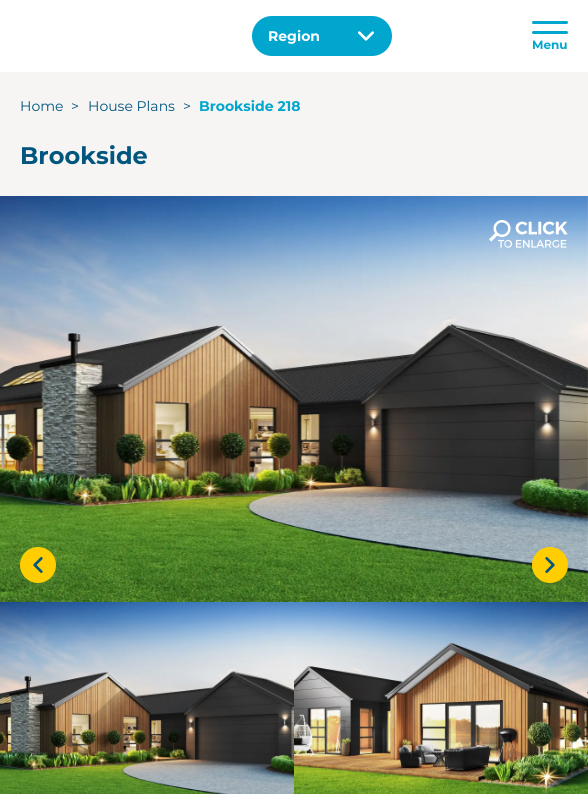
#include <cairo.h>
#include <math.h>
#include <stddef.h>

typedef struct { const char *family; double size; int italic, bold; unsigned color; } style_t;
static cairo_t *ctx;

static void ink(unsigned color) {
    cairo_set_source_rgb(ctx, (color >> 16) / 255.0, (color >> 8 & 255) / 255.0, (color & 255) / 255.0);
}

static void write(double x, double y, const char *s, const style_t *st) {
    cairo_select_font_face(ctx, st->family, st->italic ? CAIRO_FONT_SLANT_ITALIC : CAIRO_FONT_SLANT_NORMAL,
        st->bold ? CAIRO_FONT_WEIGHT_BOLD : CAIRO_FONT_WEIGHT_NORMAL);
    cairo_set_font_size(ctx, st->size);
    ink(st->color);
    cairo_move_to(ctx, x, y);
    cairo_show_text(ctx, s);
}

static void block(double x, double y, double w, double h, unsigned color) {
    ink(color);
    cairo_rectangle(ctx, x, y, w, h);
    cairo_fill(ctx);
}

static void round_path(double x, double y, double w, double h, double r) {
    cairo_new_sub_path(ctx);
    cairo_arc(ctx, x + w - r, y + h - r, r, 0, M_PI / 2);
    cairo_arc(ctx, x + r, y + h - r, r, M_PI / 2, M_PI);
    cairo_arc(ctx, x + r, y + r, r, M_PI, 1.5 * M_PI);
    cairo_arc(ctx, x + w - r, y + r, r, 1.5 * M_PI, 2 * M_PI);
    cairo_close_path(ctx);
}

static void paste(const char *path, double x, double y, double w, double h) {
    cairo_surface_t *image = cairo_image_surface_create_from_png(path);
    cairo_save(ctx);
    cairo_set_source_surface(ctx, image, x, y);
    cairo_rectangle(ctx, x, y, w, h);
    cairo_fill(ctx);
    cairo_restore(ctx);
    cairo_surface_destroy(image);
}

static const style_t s1 = {"Montserrat", 14, 0, 1, 0xffffff};
static const style_t s2 = {"Montserrat", 12, 0, 1, 0x00a6ce};
static const style_t s3 = {"Montserrat", 14, 0, 0, 0x00567d};
static const style_t s4 = {"Montserrat", 14, 0, 1, 0x00a6ce};
static const style_t s5 = {"Montserrat", 24, 0, 1, 0x00567d};

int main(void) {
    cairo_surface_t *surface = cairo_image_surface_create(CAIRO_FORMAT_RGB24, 588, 794);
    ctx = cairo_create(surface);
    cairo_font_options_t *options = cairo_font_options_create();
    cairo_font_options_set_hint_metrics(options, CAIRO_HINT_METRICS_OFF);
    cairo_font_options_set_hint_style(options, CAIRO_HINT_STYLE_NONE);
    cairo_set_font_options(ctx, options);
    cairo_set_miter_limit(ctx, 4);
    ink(0xf7f4f4);
    cairo_paint(ctx);
    block(0, 0, 588, 72, 0xffffff);
    ink(0x00a6ce);
    round_path(252, 16, 140, 40, 20);
    cairo_fill(ctx);
    write(268, 41, "Region", &s1);
    paste("pic1.png", 358, 31, 16, 10);
    ink(0x00a6ce);
    round_path(532, 21, 36, 3, 1.5);
    cairo_fill(ctx);
    round_path(532, 31, 36, 3, 1.5);
    cairo_fill(ctx);
    write(532, 49, "Menu", &s2);
    write(20, 111, "Home", &s3);
    write(71, 111, ">", &s3);
    write(88, 111, "House Plans", &s3);
    write(183, 111, ">", &s3);
    write(199, 111, "Brookside 218", &s4);
    write(20, 164, "Brookside", &s5);
    paste("pic2.png", 0, 196, 588, 406);
    ink(0xffcd00);
    cairo_arc(ctx, 38, 565, 18, 0, 2 * M_PI);
    cairo_fill(ctx);
    paste("pic3.png", 33, 557, 10, 16);
    cairo_arc(ctx, 550, 565, 18, 0, 2 * M_PI);
    cairo_fill(ctx);
    paste("pic4.png", 545, 557, 10, 16);
    paste("pic5.png", 489, 220, 79, 28);
    paste("pic6.png", 0, 602, 294, 192);
    paste("pic7.png", 294, 602, 294, 192);
    cairo_surface_write_to_png(surface, "screenshot.png");
    cairo_font_options_destroy(options);
    cairo_destroy(ctx);
    cairo_surface_destroy(surface);
    return 0;
}
